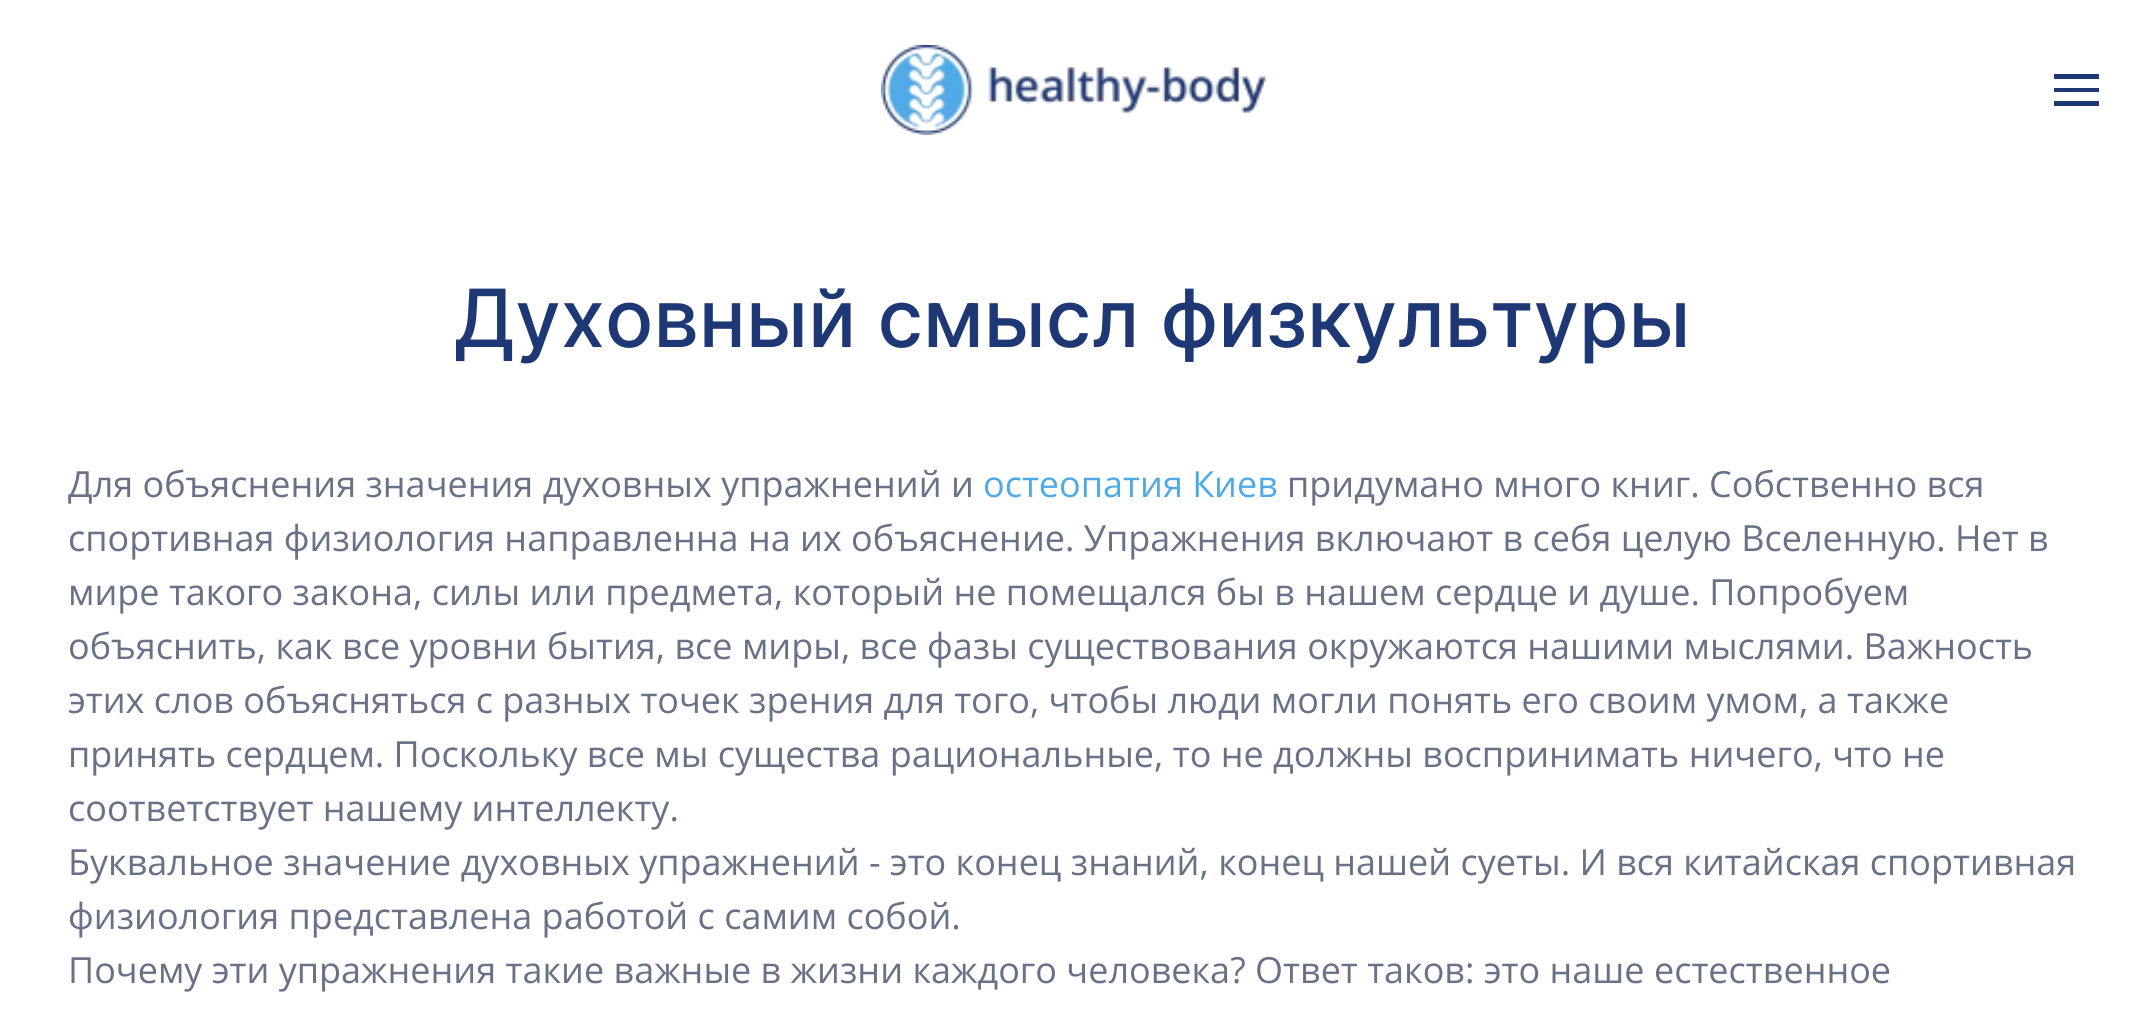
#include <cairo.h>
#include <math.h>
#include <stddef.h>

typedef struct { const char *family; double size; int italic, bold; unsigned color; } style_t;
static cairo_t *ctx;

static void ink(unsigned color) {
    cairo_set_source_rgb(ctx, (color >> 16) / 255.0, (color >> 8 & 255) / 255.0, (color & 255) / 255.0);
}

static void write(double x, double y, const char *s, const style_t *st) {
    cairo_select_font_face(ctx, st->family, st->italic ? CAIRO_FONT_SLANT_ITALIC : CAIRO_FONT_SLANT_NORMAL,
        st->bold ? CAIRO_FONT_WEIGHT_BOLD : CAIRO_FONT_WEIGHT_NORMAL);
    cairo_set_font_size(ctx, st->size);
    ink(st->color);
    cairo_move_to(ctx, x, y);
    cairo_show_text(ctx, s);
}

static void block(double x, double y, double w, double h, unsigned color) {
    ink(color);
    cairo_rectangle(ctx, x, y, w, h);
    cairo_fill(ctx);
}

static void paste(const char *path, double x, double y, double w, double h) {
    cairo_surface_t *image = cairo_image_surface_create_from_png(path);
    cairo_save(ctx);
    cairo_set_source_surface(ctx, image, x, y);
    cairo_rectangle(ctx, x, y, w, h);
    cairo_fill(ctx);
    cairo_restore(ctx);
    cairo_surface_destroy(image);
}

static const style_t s1 = {"Inter Medium", 80.3, 0, 0, 0x1e3876};
static const style_t s2 = {"Open Sans", 36, 0, 0, 0x687186};
static const style_t s3 = {"Open Sans", 36, 0, 0, 0x4faae7};

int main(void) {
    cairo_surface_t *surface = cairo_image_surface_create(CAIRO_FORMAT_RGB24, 2143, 1030);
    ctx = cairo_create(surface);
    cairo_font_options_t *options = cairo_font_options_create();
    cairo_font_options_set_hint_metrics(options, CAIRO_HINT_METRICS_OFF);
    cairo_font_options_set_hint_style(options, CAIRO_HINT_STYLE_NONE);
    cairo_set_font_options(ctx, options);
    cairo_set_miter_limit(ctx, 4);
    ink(0xffffff);
    cairo_paint(ctx);
    paste("pic1.png", 880, 45, 386, 90);
    block(2054, 74, 45, 5, 0x1e3876);
    block(2054, 88, 45, 4, 0x1e3876);
    block(2054, 101, 45, 5, 0x1e3876);
    write(454, 347, "Духовный смысл физкультуры", &s1);
    write(68, 497, "Для объяснения значения духовных упражнений и", &s2);
    write(983, 497, "остеопатия Киев", &s3);
    write(1287, 497, "придумано много книг. Собственно вся", &s2);
    write(68, 551, "спортивная физиология направленна на их объяснение. Упражнения включают в себя целую Вселенную. Нет в", &s2);
    write(68, 605, "мире такого закона, силы или предмета, который не помещался бы в нашем сердце и душе. Попробуем", &s2);
    write(68, 659, "объяснить, как все уровни бытия, все миры, все фазы существования окружаются нашими мыслями. Важность", &s2);
    write(68, 713, "этих слов объясняться с разных точек зрения для того, чтобы люди могли понять его своим умом, а также", &s2);
    write(68, 767, "принять сердцем. Поскольку все мы существа рациональные, то не должны воспринимать ничего, что не", &s2);
    write(68, 821, "соответствует нашему интеллекту.", &s2);
    write(68, 875, "Буквальное значение духовных упражнений - это конец знаний, конец нашей суеты. И вся китайская спортивная", &s2);
    write(68, 929, "физиология представлена работой с самим собой.", &s2);
    write(68, 983, "Почему эти упражнения такие важные в жизни каждого человека? Ответ таков: это наше естественное", &s2);
    cairo_surface_write_to_png(surface, "screenshot.png");
    cairo_font_options_destroy(options);
    cairo_destroy(ctx);
    cairo_surface_destroy(surface);
    return 0;
}
